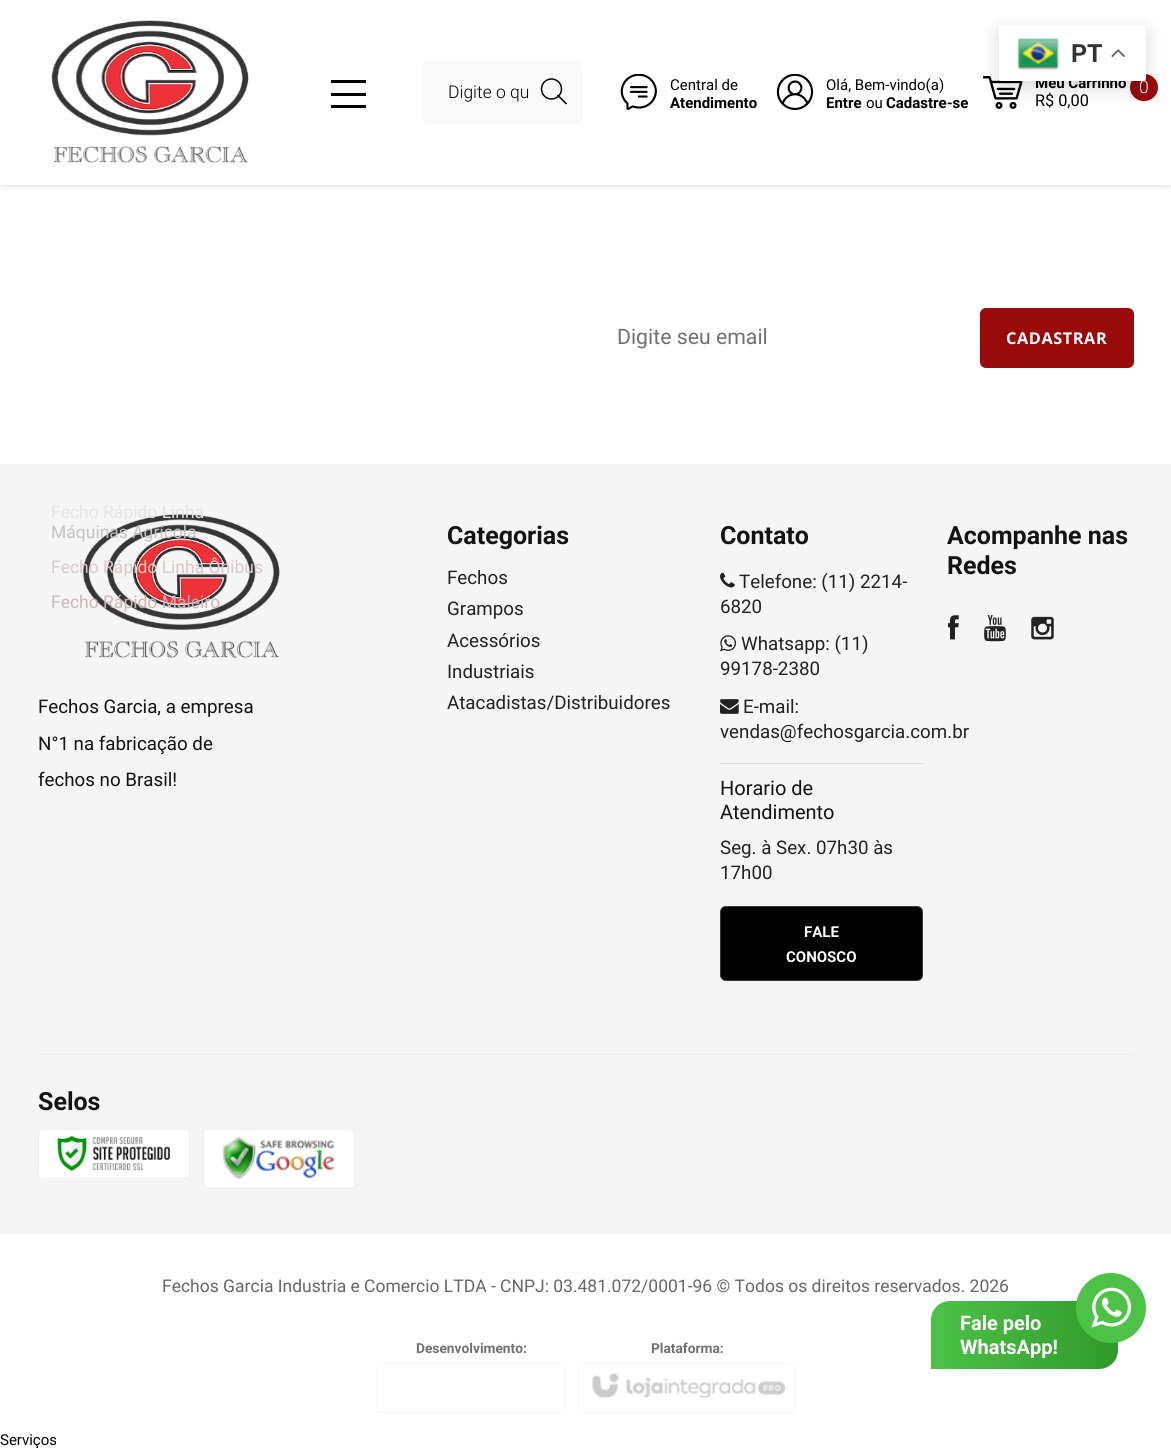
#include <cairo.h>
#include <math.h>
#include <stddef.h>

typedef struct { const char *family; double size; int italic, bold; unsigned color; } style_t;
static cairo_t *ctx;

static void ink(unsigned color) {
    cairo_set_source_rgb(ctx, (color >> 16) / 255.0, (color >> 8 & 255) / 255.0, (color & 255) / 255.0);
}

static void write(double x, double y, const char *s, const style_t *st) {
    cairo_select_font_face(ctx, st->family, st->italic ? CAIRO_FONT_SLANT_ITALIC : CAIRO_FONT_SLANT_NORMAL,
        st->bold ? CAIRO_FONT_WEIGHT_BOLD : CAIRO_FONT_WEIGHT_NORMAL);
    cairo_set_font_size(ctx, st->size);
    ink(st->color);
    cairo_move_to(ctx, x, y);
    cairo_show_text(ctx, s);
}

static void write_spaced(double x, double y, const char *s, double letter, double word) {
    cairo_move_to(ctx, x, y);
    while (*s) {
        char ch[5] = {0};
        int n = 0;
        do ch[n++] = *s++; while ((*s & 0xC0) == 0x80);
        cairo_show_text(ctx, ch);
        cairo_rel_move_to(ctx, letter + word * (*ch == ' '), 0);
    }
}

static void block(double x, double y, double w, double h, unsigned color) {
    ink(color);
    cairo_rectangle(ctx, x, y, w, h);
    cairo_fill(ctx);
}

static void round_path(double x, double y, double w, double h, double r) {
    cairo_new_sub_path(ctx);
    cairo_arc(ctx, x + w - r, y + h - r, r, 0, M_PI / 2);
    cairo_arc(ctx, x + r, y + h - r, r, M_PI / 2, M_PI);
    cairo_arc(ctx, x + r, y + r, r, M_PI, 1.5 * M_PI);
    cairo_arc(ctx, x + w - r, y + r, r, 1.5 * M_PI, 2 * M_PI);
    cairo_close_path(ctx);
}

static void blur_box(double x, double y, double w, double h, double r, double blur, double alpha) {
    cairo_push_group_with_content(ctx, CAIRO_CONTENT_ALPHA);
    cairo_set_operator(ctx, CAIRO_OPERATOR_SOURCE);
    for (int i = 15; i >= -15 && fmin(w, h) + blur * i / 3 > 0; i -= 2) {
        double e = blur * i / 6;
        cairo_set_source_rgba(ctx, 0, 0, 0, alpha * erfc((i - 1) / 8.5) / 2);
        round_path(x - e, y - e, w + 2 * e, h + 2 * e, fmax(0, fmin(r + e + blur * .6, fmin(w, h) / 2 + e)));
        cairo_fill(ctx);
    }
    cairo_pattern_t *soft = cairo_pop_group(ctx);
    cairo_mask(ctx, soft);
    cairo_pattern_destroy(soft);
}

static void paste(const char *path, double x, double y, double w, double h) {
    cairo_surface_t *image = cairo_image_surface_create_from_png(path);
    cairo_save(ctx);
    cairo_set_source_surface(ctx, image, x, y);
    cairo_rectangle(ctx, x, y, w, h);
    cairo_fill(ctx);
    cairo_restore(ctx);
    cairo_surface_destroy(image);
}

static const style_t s1 = {"Roboto", 15, 0, 1, 0x000000};
static const style_t s2 = {"Roboto", 25, 0, 1, 0x333333};
static const style_t s3 = {"Roboto Light", 17.5, 0, 0, 0x000000};
static const style_t s4 = {"Roboto", 15, 0, 0, 0x000000};
static const style_t s5 = {"Roboto", 16.25, 0, 0, 0x000000};
static const style_t s6 = {"Roboto Light", 17.5, 0, 0, 0xffffff};
static const style_t s7 = {"Roboto", 17.5, 0, 0, 0xe3e3e3};
static const style_t s8 = {"Roboto", 17.5, 0, 0, 0xc3c3c3};
static const style_t s9 = {"Roboto", 17.5, 0, 0, 0xdcc8c8};
static const style_t s10 = {"Roboto", 17.5, 0, 0, 0xccb6b7};
static const style_t s11 = {"Roboto", 21.25, 0, 0, 0x707070};
static const style_t s12 = {"Roboto", 18.75, 0, 0, 0x141313};
static const style_t s13 = {"Roboto", 25, 0, 1, 0x141313};
static const style_t s14 = {"Roboto", 18.75, 0, 0, 0x222222};
static const style_t s15 = {"Roboto", 20, 0, 0, 0x141313};
static const style_t s16 = {"Roboto", 15, 0, 1, 0xffffff};
static const style_t s17 = {"Roboto", 17.5, 0, 0, 0x666666};
static const style_t s18 = {"Roboto", 13.75, 0, 1, 0x707070};
static const style_t s19 = {"Roboto", 20, 0, 1, 0xffffff};

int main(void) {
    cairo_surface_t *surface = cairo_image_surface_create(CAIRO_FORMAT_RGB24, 1171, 1448);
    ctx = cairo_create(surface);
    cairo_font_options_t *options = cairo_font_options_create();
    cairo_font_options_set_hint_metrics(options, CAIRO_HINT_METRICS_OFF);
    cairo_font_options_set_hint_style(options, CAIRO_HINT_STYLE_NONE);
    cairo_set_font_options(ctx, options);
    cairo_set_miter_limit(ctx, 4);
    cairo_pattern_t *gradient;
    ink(0xffffff);
    cairo_paint(ctx);
    ink(0x000000);
    blur_box(3, -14, 1166, 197, 0, 4.5, 0.3);
    block(0, 0, 1171, 185, 0xffffff);
    paste("pic6.png", 983, 76, 40, 33);
    ink(0x9b0a0a);
    round_path(1130, 74, 28, 27, 13.5);
    cairo_fill(ctx);
    cairo_rectangle(ctx, 1130.5, 74.5, 27, 26);
    cairo_set_source_rgba(ctx, 0, 0, 0, 0.06);
    cairo_set_line_width(ctx, 1);
    cairo_stroke(ctx);
    ink(0x000000);
    blur_box(999, 31, 147, 57, 2.5, 9.5, 0.15);
    write(1035, 88, "Meu Carrinho", &s1);
    ink(0xffffff);
    round_path(999, 25, 147, 56, 2.5);
    cairo_fill(ctx);
    paste("pic1.png", 1017, 38, 42, 32);
    write(1071, 62, "PT", &s2);
    paste("pic2.png", 1111, 49, 14, 9);
    paste("pic3.png", 51, 20, 198, 143);
    block(331, 80, 35, 3, 0x000000);
    block(331, 93, 35, 3, 0x000000);
    block(331, 105, 35, 3, 0x000000);
    ink(0xf9f9f9);
    round_path(423, 61, 160, 63, 6);
    cairo_fill(ctx);
    write(448, 98, "Digite o qu", &s3);
    cairo_new_path(ctx);
    cairo_move_to(ctx, 566, 103.5);
    cairo_line_to(ctx, 558, 95.5);
    cairo_set_line_width(ctx, 1.5);
    cairo_set_line_cap(ctx, CAIRO_LINE_CAP_SQUARE);
    cairo_stroke(ctx);
    cairo_arc(ctx, 551.5, 89, 10, 0, 2 * M_PI);
    cairo_set_line_cap(ctx, CAIRO_LINE_CAP_BUTT);
    cairo_stroke(ctx);
    paste("pic4.png", 620, 74, 37, 36);
    write(670, 90, "Central de", &s4);
    write(670, 108, "Atendimento", &s1);
    paste("pic5.png", 776, 74, 38, 36);
    write(826, 90, "Olá, Bem-vindo(a)", &s4);
    write(826, 108, "Entre", &s1);
    write(866, 108, "ou", &s4);
    write(886, 108, "Cadastre-se", &s1);
    write(1035, 106, "R$ 0,00", &s5);
    write(1139, 93, "0", &s6);
    block(0, 464, 1171, 769, 0xf5f5f5);
    paste("pic7.png", 82, 514, 198, 144);
    write(51, 518, "Fecho Rápido Linha", &s7);
    write(51, 538, "Máquinas Agrícola", &s8);
    write(51, 573, "Fecho Rápido Linha Ônibus", &s9);
    write(51, 608, "Fecho Rápido Maleiro", &s10);
    write(617, 344, "Digite seu email", &s11);
    ink(0x9b0a0a);
    round_path(980, 308, 154, 60, 6);
    cairo_fill(ctx);
    cairo_select_font_face(ctx, "Open Sans", CAIRO_FONT_SLANT_NORMAL, CAIRO_FONT_WEIGHT_BOLD);
    cairo_set_font_size(ctx, 16.25);
    ink(0xffffff);
    write_spaced(1006, 344, "CADASTRAR", 0.6, 0);
    write(38, 713, "Fechos Garcia, a empresa", &s12);
    write(38, 750, "N°1 na fabricação de", &s12);
    write(38, 786, "fechos no Brasil!", &s12);
    write(447, 544, "Categorias", &s13);
    write(447, 584, "Fechos", &s14);
    write(447, 615, "Grampos", &s14);
    write(447, 647, "Acessórios", &s14);
    write(447, 678, "Industriais", &s14);
    write(447, 709, "Atacadistas/Distribuidores", &s14);
    write(720, 544, "Contato", &s13);
    paste("pic8.png", 720, 572, 15, 16);
    write(739, 588, "Telefone: (11) 2214-", &s14);
    write(720, 613, "6820", &s14);
    paste("pic9.png", 720, 635, 17, 17);
    write(741, 650, "Whatsapp: (11)", &s14);
    write(720, 675, "99178-2380", &s14);
    paste("pic10.png", 720, 699, 19, 15);
    write(743, 713, "E-mail:", &s14);
    write(720, 738, "vendas@fechosgarcia.com.br", &s14);
    block(720, 763, 203, 1, 0xdbdbdb);
    write(720, 795, "Horario de", &s15);
    write(720, 819, "Atendimento", &s15);
    write(720, 854, "Seg. à Sex. 07h30 às", &s14);
    write(720, 879, "17h00", &s14);
    ink(0x000000);
    round_path(720, 906, 203, 75, 6);
    cairo_fill(ctx);
    round_path(720.5, 906.5, 202, 74, 5.5);
    cairo_set_source_rgba(ctx, 1, 1, 1, 0.22);
    cairo_set_line_width(ctx, 1);
    cairo_stroke(ctx);
    write(804, 937, "FALE", &s16);
    write(786, 962, "CONOSCO", &s16);
    write(947, 544, "Acompanhe nas", &s13);
    write(947, 574, "Redes", &s13);
    paste("pic11.png", 948, 615, 11, 25);
    paste("pic12.png", 984, 615, 22, 27);
    paste("pic13.png", 1031, 616, 23, 24);
    block(38, 1054, 1096, 1, 0xebebeb);
    write(38, 1110, "Selos", &s13);
    ink(0xffffff);
    round_path(38.5, 1129.5, 151, 49, 3.5);
    cairo_fill_preserve(ctx);
    ink(0xeeeeee);
    cairo_stroke(ctx);
    paste("pic14.png", 57, 1136, 113, 35);
    ink(0xffffff);
    round_path(203.5, 1129.5, 151, 59, 3.5);
    cairo_fill_preserve(ctx);
    ink(0xeeeeee);
    cairo_stroke(ctx);
    paste("pic15.png", 222, 1137, 113, 42);
    block(0, 1233, 1171, 1, 0xeeeeee);
    write(162, 1292, "Fechos Garcia Industria e Comercio LTDA - CNPJ: 03.481.072/0001-96 © Todos os direitos reservados. 2026", &s17);
    write(416, 1353, "Desenvolvimento:", &s18);
    round_path(376.5, 1363.5, 189, 49, 4.5);
    ink(0xf5f5f5);
    cairo_stroke(ctx);
    write(651, 1353, "Plataforma:", &s18);
    round_path(579.5, 1363.5, 215, 49, 4.5);
    ink(0xf5f5f5);
    cairo_stroke(ctx);
    paste("pic16.png", 592, 1373, 194, 25);
    gradient = cairo_pattern_create_linear(931, 1335, 1118, 1335);
    cairo_pattern_add_color_stop_rgba(gradient, 0, 0.302, 0.761, 0.278, 1);
    cairo_pattern_add_color_stop_rgba(gradient, 1, 0.188, 0.604, 0.165, 1);
    cairo_set_source(ctx, gradient);
    cairo_pattern_destroy(gradient);
    cairo_new_path(ctx);
    cairo_move_to(ctx, 950, 1301);
    cairo_line_to(ctx, 1118, 1301);
    cairo_line_to(ctx, 1118, 1350);
    cairo_curve_to(ctx, 1118, 1360.5, 1109.5, 1369, 1099, 1369);
    cairo_line_to(ctx, 931, 1369);
    cairo_line_to(ctx, 931, 1320);
    cairo_curve_to(ctx, 931, 1309.5, 939.5, 1301, 950, 1301);
    cairo_close_path(ctx);
    cairo_fill(ctx);
    ink(0x4dc247);
    cairo_arc(ctx, 1111, 1308, 35, 0, 2 * M_PI);
    cairo_fill(ctx);
    paste("pic17.png", 1091, 1287, 40, 41);
    write(960, 1330, "Fale pelo", &s19);
    write(960, 1354, "WhatsApp!", &s19);
    write(0, 1445, "Serviços", &s4);
    cairo_surface_write_to_png(surface, "screenshot.png");
    cairo_font_options_destroy(options);
    cairo_destroy(ctx);
    cairo_surface_destroy(surface);
    return 0;
}
